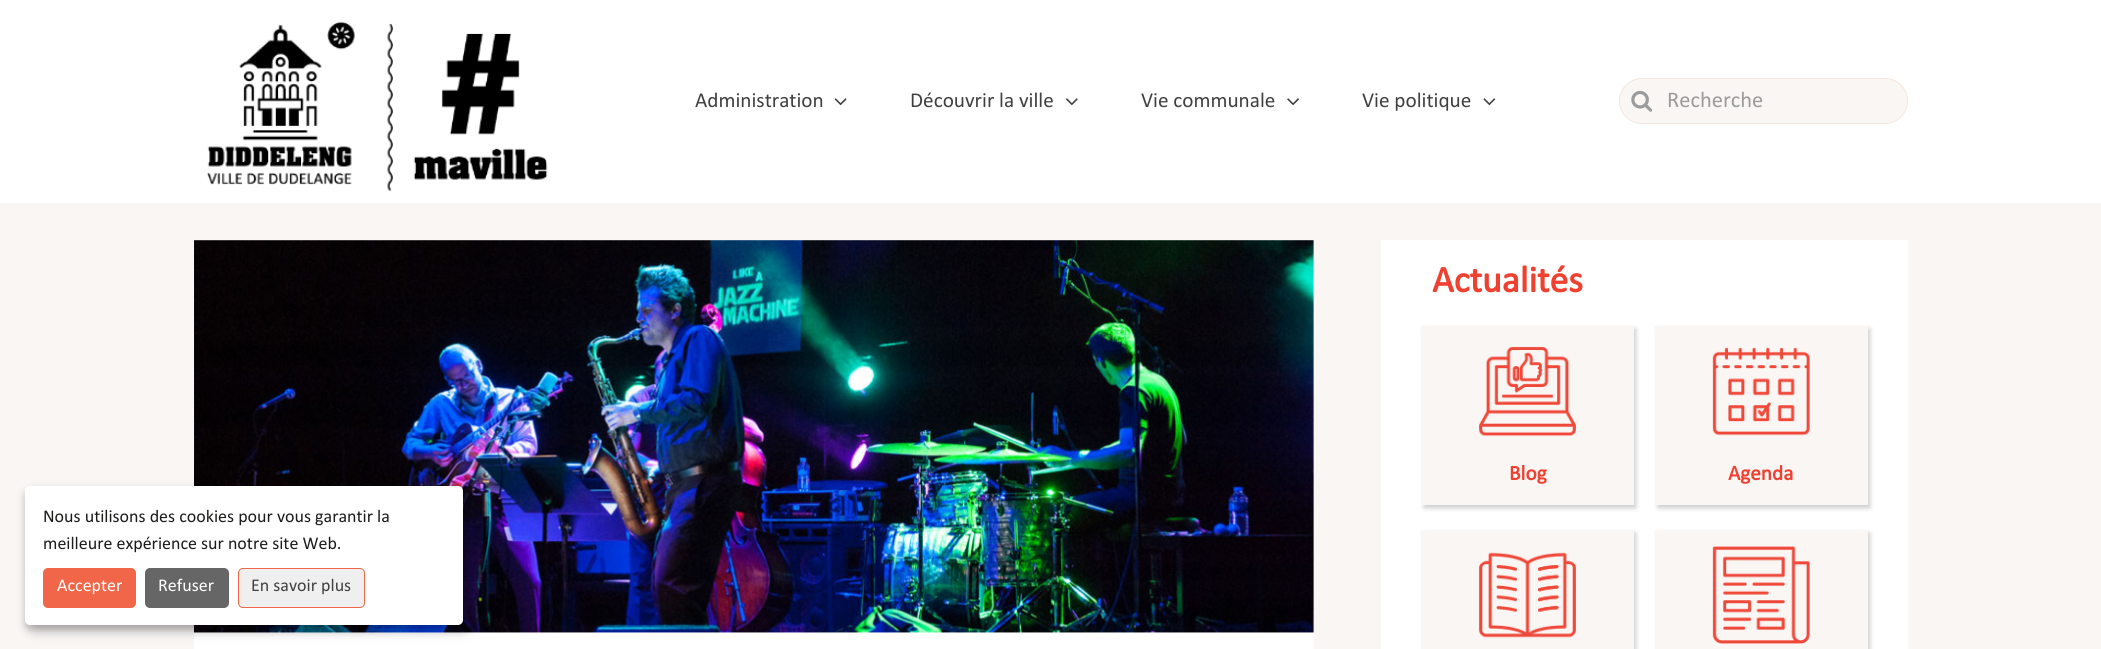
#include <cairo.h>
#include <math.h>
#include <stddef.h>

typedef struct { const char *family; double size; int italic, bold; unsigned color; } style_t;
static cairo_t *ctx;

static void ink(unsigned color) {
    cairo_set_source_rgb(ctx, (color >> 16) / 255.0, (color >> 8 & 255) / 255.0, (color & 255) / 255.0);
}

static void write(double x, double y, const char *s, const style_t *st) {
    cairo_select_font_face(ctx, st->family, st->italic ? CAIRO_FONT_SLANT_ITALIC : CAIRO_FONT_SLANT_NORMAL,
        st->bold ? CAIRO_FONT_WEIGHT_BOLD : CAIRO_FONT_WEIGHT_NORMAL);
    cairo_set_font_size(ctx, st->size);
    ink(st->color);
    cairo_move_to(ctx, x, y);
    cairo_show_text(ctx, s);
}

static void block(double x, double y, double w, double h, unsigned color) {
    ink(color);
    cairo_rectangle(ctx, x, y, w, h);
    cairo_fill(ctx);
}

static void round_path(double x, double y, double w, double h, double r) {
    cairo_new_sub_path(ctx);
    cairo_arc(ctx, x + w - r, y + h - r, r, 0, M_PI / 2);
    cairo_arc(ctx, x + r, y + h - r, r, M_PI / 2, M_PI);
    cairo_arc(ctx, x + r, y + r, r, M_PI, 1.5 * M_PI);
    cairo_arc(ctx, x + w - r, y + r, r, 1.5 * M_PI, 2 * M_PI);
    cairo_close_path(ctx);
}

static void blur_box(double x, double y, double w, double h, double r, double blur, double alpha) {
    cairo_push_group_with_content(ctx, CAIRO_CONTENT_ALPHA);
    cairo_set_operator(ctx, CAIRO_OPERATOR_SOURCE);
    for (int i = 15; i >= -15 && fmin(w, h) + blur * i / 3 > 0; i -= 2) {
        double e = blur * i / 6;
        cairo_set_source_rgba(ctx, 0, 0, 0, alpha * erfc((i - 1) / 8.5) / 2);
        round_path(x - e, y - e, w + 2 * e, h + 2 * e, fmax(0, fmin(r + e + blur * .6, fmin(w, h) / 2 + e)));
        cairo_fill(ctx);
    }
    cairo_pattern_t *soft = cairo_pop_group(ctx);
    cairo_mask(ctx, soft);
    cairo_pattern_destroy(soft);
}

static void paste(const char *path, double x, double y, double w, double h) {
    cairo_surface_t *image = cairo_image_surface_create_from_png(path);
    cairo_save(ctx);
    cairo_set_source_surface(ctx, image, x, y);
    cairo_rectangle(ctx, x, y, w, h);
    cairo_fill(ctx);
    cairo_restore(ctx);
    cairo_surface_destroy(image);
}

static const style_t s1 = {"Calibri", 21.25, 0, 0, 0x404040};
static const style_t s2 = {"Calibri", 22.5, 0, 0, 0x9b9b9b};
static const style_t s3 = {"Calibri", 37.5, 0, 1, 0xef4030};
static const style_t s4 = {"Calibri", 21.25, 0, 1, 0xef4030};
static const style_t s5 = {"Calibri", 18, 0, 0, 0x1b1b1a};
static const style_t s6 = {"Calibri", 18, 0, 0, 0xffffff};
static const style_t s7 = {"Calibri", 18, 0, 0, 0x404040};

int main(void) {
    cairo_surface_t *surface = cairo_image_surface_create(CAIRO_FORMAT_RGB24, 2101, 649);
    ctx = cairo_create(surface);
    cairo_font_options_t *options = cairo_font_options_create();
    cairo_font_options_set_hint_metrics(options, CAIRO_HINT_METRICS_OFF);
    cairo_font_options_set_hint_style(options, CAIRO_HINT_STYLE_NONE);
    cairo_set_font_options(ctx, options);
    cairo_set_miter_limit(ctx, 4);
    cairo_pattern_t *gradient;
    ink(0xf9f6f4);
    cairo_paint(ctx);
    block(0, 0, 2101, 203, 0xffffff);
    paste("pic1.png", 206, 21, 342, 171);
    write(695, 107, "Administration", &s1);
    paste("pic2.png", 834, 98, 13, 8);
    write(910, 107, "Découvrir la ville", &s1);
    paste("pic3.png", 1066, 98, 12, 8);
    write(1141, 107, "Vie communale", &s1);
    paste("pic4.png", 1287, 98, 12, 8);
    write(1362, 107, "Vie politique", &s1);
    paste("pic5.png", 1483, 98, 13, 8);
    ink(0xf9f6f4);
    round_path(1619.5, 78.5, 288, 45, 22.5);
    cairo_fill_preserve(ctx);
    ink(0xf4e6de);
    cairo_set_line_width(ctx, 1);
    cairo_stroke(ctx);
    paste("pic6.png", 1631, 90, 22, 22);
    write(1667, 107, "Recherche", &s2);
    block(194, 240, 1120, 409, 0xffffff);
    paste("pic7.png", 194, 240, 1120, 393);
    gradient = cairo_pattern_create_linear(1644, 240, 1644, 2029);
    cairo_pattern_add_color_stop_rgba(gradient, 0.3, 1, 1, 1, 1);
    cairo_pattern_add_color_stop_rgba(gradient, 0.31, 0.973, 0.969, 0.957, 1);
    cairo_set_source(ctx, gradient);
    cairo_pattern_destroy(gradient);
    cairo_rectangle(ctx, 1381, 240, 527, 409);
    cairo_fill(ctx);
    write(1432, 292, "Actualités", &s3);
    block(1421, 326, 213, 179, 0xf9f6f4);
    cairo_save(ctx);
    cairo_set_fill_rule(ctx, CAIRO_FILL_RULE_EVEN_ODD);
    cairo_new_path(ctx);
    cairo_move_to(ctx, 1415, 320);
    cairo_line_to(ctx, 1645, 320);
    cairo_line_to(ctx, 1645, 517);
    cairo_line_to(ctx, 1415, 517);
    cairo_close_path(ctx);
    cairo_move_to(ctx, 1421, 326);
    cairo_line_to(ctx, 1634, 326);
    cairo_line_to(ctx, 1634, 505);
    cairo_line_to(ctx, 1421, 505);
    cairo_close_path(ctx);
    cairo_clip(ctx);
    ink(0x000000);
    blur_box(1424, 329, 212, 179, 0, 2.5, 0.2);
    cairo_restore(ctx);
    paste("pic8.png", 1479, 346, 97, 91);
    write(1509, 480, "Blog", &s4);
    block(1655, 326, 213, 179, 0xf9f6f4);
    cairo_save(ctx);
    cairo_set_fill_rule(ctx, CAIRO_FILL_RULE_EVEN_ODD);
    cairo_new_path(ctx);
    cairo_move_to(ctx, 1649, 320);
    cairo_line_to(ctx, 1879, 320);
    cairo_line_to(ctx, 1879, 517);
    cairo_line_to(ctx, 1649, 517);
    cairo_close_path(ctx);
    cairo_move_to(ctx, 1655, 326);
    cairo_line_to(ctx, 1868, 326);
    cairo_line_to(ctx, 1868, 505);
    cairo_line_to(ctx, 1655, 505);
    cairo_close_path(ctx);
    cairo_clip(ctx);
    ink(0x000000);
    blur_box(1658, 329, 212, 179, 0, 2.5, 0.2);
    cairo_restore(ctx);
    paste("pic9.png", 1712, 347, 98, 89);
    write(1728, 480, "Agenda", &s4);
    block(1421, 530, 213, 119, 0xf9f6f4);
    cairo_save(ctx);
    cairo_set_fill_rule(ctx, CAIRO_FILL_RULE_EVEN_ODD);
    cairo_new_path(ctx);
    cairo_move_to(ctx, 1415, 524);
    cairo_line_to(ctx, 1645, 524);
    cairo_line_to(ctx, 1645, 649);
    cairo_line_to(ctx, 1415, 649);
    cairo_close_path(ctx);
    cairo_move_to(ctx, 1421, 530);
    cairo_line_to(ctx, 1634, 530);
    cairo_line_to(ctx, 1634, 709);
    cairo_line_to(ctx, 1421, 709);
    cairo_close_path(ctx);
    cairo_clip(ctx);
    ink(0x000000);
    blur_box(1424, 533, 212, 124, 0, 2.5, 0.2);
    cairo_restore(ctx);
    paste("pic10.png", 1479, 552, 97, 86);
    block(1655, 530, 213, 119, 0xf9f6f4);
    cairo_save(ctx);
    cairo_set_fill_rule(ctx, CAIRO_FILL_RULE_EVEN_ODD);
    cairo_new_path(ctx);
    cairo_move_to(ctx, 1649, 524);
    cairo_line_to(ctx, 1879, 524);
    cairo_line_to(ctx, 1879, 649);
    cairo_line_to(ctx, 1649, 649);
    cairo_close_path(ctx);
    cairo_move_to(ctx, 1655, 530);
    cairo_line_to(ctx, 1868, 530);
    cairo_line_to(ctx, 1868, 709);
    cairo_line_to(ctx, 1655, 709);
    cairo_close_path(ctx);
    cairo_clip(ctx);
    ink(0x000000);
    blur_box(1658, 533, 212, 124, 0, 2.5, 0.2);
    cairo_restore(ctx);
    paste("pic11.png", 1712, 546, 98, 98);
    ink(0x000000);
    blur_box(31, 493, 438, 138, 5, 6, 0.19);
    blur_box(25, 491, 438, 139, 5, 4, 0.2);
    ink(0xffffff);
    round_path(25, 486, 438, 139, 5);
    cairo_fill(ctx);
    write(43, 522, "Nous utilisons des cookies pour vous garantir la", &s5);
    write(43, 549, "meilleure expérience sur notre site Web.", &s5);
    ink(0xf16648);
    round_path(43, 568, 93, 40, 5);
    cairo_fill(ctx);
    write(57, 591, "Accepter", &s6);
    ink(0x666666);
    round_path(145, 568, 84, 40, 5);
    cairo_fill(ctx);
    write(158, 591, "Refuser", &s6);
    ink(0xefefef);
    round_path(238.5, 568.5, 126, 39, 4.5);
    cairo_fill_preserve(ctx);
    ink(0xf16648);
    cairo_stroke(ctx);
    write(251, 591, "En savoir plus", &s7);
    cairo_surface_write_to_png(surface, "screenshot.png");
    cairo_font_options_destroy(options);
    cairo_destroy(ctx);
    cairo_surface_destroy(surface);
    return 0;
}
